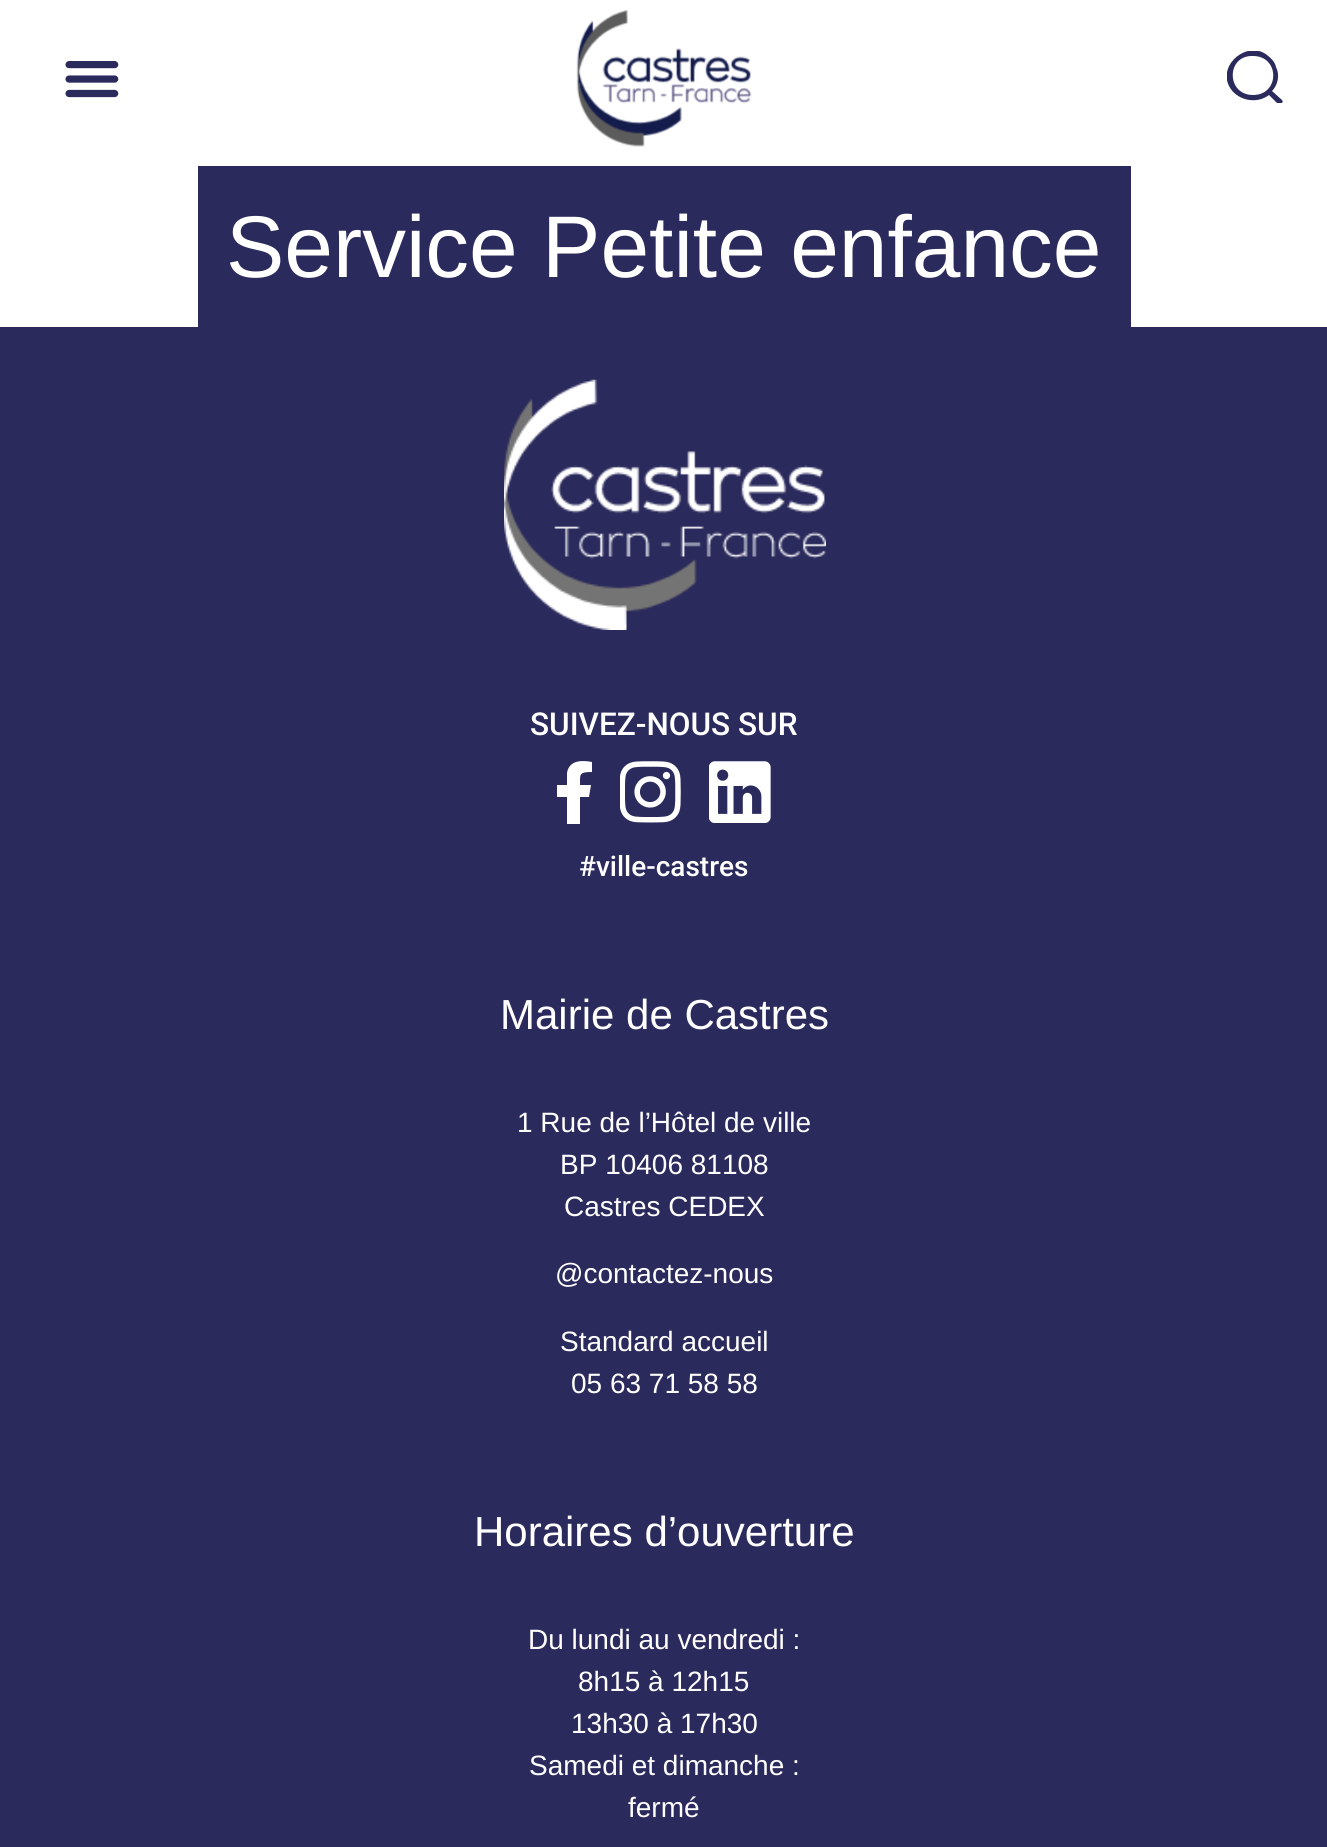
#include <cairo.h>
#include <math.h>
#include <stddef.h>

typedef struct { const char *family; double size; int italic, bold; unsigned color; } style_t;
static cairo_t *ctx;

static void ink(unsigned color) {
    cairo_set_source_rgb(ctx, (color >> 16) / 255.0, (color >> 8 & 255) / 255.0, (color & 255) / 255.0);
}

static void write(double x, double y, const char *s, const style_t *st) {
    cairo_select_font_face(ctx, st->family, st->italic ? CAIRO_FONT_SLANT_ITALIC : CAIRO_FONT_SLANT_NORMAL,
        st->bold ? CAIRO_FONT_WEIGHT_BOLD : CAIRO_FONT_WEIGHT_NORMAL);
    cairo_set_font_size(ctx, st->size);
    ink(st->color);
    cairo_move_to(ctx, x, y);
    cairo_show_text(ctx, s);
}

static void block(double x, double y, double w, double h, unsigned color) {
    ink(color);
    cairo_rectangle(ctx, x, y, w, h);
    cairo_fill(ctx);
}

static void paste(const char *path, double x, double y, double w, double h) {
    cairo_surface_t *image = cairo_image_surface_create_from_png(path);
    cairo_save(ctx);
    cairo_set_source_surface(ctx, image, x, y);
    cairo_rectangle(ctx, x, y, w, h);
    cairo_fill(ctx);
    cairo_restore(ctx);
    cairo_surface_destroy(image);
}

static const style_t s1 = {"Liberation Sans", 87.5, 0, 0, 0xffffff};
static const style_t s2 = {"Roboto Medium", 31.5, 0, 0, 0xffffff};
static const style_t s3 = {"Roboto Medium", 28, 0, 0, 0xffffff};
static const style_t s4 = {"Liberation Sans", 42, 0, 0, 0xffffff};
static const style_t s5 = {"Liberation Sans", 28, 0, 0, 0xffffff};

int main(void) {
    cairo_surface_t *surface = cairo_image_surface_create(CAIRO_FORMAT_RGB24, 1327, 1847);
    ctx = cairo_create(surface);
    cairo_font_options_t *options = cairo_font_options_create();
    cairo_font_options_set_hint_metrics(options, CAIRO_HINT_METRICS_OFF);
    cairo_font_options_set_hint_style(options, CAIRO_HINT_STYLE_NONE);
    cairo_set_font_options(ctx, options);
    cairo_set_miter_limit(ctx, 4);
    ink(0xffffff);
    cairo_paint(ctx);
    paste("pic1.png", 65, 61, 54, 37);
    paste("pic2.png", 576, 10, 176, 137);
    cairo_save(ctx);
    cairo_rectangle(ctx, 1227, 51, 56, 52);
    cairo_clip(ctx);
    ink(0x2b2a5c);
    cairo_set_fill_rule(ctx, CAIRO_FILL_RULE_EVEN_ODD);
    cairo_new_path(ctx);
    cairo_move_to(ctx, 1282, 100);
    cairo_curve_to(ctx, 1284, 102, 1281, 105, 1278, 104);
    cairo_line_to(ctx, 1269, 95);
    cairo_curve_to(ctx, 1256, 105, 1236, 100, 1229, 86);
    cairo_curve_to(ctx, 1218, 64, 1248, 40, 1267, 55);
    cairo_curve_to(ctx, 1271, 58, 1275, 62, 1276, 67);
    cairo_curve_to(ctx, 1280, 75, 1278, 85, 1272, 91);
    cairo_close_path(ctx);
    cairo_move_to(ctx, 1253, 95);
    cairo_curve_to(ctx, 1280, 95, 1280, 56, 1253, 56);
    cairo_curve_to(ctx, 1226, 55, 1226, 95, 1253, 95);
    cairo_close_path(ctx);
    cairo_fill(ctx);
    cairo_restore(ctx);
    block(198, 166, 933, 161, 0x2b2a5c);
    write(226, 277, "Service Petite enfance", &s1);
    block(0, 327, 1327, 1520, 0x2b2a5c);
    paste("pic3.png", 504, 379, 322, 251);
    write(530, 735, "SUIVEZ-NOUS SUR", &s2);
    cairo_save(ctx);
    cairo_rectangle(ctx, 557, 761, 35, 63);
    cairo_clip(ctx);
    cairo_new_path(ctx);
    cairo_move_to(ctx, 589, 797);
    cairo_line_to(ctx, 591, 785);
    cairo_line_to(ctx, 580, 785);
    cairo_curve_to(ctx, 580, 774, 579, 772, 592, 772);
    cairo_line_to(ctx, 592, 762);
    cairo_curve_to(ctx, 582, 760, 569, 760, 567, 773);
    cairo_line_to(ctx, 567, 785);
    cairo_line_to(ctx, 556, 785);
    cairo_line_to(ctx, 556, 797);
    cairo_line_to(ctx, 567, 797);
    cairo_line_to(ctx, 567, 824);
    cairo_line_to(ctx, 580, 824);
    cairo_line_to(ctx, 580, 797);
    cairo_close_path(ctx);
    cairo_fill(ctx);
    cairo_restore(ctx);
    paste("pic4.png", 620, 761, 61, 62);
    paste("pic5.png", 709, 761, 62, 62);
    write(579, 876, "#ville-castres", &s3);
    write(500, 1029, "Mairie de Castres", &s4);
    write(517, 1132, "1 Rue de l’Hôtel de ville", &s5);
    write(560, 1174, "BP 10406 81108", &s5);
    write(564, 1216, "Castres CEDEX", &s5);
    write(555, 1283, "@contactez-nous", &s5);
    write(560, 1351, "Standard accueil", &s5);
    write(571, 1393, "05 63 71 58 58", &s5);
    write(474, 1546, "Horaires d’ouverture", &s4);
    write(528, 1649, "Du lundi au vendredi :", &s5);
    write(578, 1691, "8h15 à 12h15", &s5);
    write(571, 1733, "13h30 à 17h30", &s5);
    write(529, 1775, "Samedi et dimanche :", &s5);
    write(628, 1817, "fermé", &s5);
    cairo_surface_write_to_png(surface, "screenshot.png");
    cairo_font_options_destroy(options);
    cairo_destroy(ctx);
    cairo_surface_destroy(surface);
    return 0;
}
